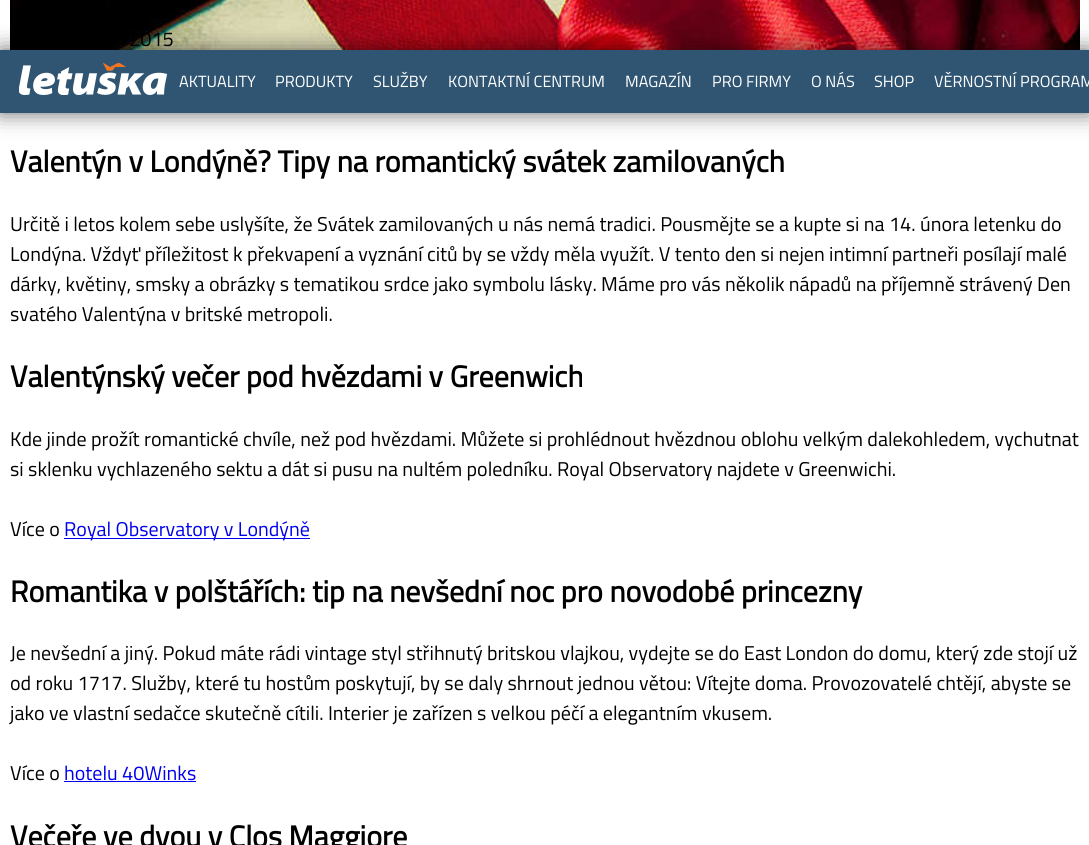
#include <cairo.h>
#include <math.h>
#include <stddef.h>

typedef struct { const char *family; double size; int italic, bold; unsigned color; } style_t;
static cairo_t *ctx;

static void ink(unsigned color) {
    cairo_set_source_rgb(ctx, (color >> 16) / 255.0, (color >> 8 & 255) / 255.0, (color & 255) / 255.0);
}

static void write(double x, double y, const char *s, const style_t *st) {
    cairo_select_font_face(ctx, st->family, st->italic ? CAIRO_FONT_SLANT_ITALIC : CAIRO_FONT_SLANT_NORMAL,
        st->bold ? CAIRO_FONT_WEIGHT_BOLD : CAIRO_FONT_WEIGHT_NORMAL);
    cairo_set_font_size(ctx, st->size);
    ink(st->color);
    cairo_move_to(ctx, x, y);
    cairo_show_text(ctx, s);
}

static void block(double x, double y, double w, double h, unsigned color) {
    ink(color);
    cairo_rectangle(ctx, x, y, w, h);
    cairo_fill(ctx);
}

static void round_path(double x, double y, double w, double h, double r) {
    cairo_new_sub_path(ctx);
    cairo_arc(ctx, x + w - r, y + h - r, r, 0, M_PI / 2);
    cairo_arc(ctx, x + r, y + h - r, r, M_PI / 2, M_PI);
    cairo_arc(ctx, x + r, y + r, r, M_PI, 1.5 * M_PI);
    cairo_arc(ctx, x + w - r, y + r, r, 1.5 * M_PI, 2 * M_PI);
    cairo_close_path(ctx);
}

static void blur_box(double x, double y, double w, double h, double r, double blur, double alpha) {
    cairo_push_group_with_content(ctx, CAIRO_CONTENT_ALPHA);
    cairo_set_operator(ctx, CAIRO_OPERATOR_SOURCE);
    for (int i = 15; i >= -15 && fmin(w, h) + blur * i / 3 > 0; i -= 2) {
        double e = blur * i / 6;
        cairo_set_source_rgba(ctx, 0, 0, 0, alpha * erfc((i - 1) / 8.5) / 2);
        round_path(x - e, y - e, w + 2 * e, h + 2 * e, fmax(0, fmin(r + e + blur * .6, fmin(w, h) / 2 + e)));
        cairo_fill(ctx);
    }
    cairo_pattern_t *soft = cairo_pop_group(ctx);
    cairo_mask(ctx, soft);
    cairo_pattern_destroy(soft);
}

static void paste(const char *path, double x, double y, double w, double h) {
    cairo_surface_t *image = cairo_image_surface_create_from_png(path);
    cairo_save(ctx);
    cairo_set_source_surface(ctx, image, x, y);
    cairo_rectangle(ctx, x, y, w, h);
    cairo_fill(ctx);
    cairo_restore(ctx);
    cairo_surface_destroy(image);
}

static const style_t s1 = {"Titillium Web", 20, 0, 0, 0x000000};
static const style_t s2 = {"Titillium Web", 30, 0, 1, 0x000000};
static const style_t s3 = {"Titillium Web", 20, 0, 0, 0x0000ee};
static const style_t s4 = {"Titillium Web", 16.25, 0, 0, 0xffffff};

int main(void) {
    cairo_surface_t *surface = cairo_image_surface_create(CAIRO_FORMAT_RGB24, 1089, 845);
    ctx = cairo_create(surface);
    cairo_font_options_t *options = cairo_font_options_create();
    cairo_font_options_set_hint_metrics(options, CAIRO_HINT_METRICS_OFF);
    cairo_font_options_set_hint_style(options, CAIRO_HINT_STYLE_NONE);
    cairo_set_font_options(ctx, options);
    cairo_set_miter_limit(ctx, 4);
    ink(0xffffff);
    cairo_paint(ctx);
    paste("pic1.png", 10, 0, 1070, 50);
    write(129, 46, "2015", &s1);
    write(10, 172, "Valentýn v Londýně? Tipy na romantický svátek zamilovaných", &s2);
    write(10, 231, "Určitě i letos kolem sebe uslyšíte, že Svátek zamilovaných u nás nemá tradici. Pousmějte se a kupte si na 14. února letenku do", &s1);
    write(10, 261, "Londýna. Vždyť příležitost k překvapení a vyznání citů by se vždy měla využít. V tento den si nejen intimní partneři posílají malé", &s1);
    write(10, 291, "dárky, květiny, smsky a obrázky s tematikou srdce jako symbolu lásky. Máme pro vás několik nápadů na příjemně strávený Den", &s1);
    write(10, 321, "svatého Valentýna v britské metropoli.", &s1);
    write(10, 387, "Valentýnský večer pod hvězdami v Greenwich", &s2);
    write(10, 446, "Kde jinde prožít romantické chvíle, než pod hvězdami. Můžete si prohlédnout hvězdnou oblohu velkým dalekohledem, vychutnat", &s1);
    write(10, 476, "si sklenku vychlazeného sektu a dát si pusu na nultém poledníku. Royal Observatory najdete v Greenwichi.", &s1);
    write(10, 536, "Více o", &s1);
    block(64, 538, 246, 1, 0x0000ee);
    write(64, 536, "Royal Observatory v Londýně", &s3);
    write(10, 602, "Romantika v polštářích: tip na nevšední noc pro novodobé princezny", &s2);
    write(10, 660, "Je nevšední a jiný. Pokud máte rádi vintage styl střihnutý britskou vlajkou, vydejte se do East London do domu, který zde stojí už", &s1);
    write(10, 690, "od roku 1717. Služby, které tu hostům poskytují, by se daly shrnout jednou větou: Vítejte doma. Provozovatelé chtějí, abyste se", &s1);
    write(10, 720, "jako ve vlastní sedačce skutečně cítili. Interier je zařízen s velkou péčí a elegantním vkusem.", &s1);
    write(10, 780, "Více o", &s1);
    write(64, 780, "hotelu 40Winks", &s3);
    block(64, 781, 132, 1, 0x0000ee);
    write(10, 847, "Večeře ve dvou v Clos Maggiore", &s2);
    ink(0x000000);
    blur_box(0, 50, 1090, 63, 0, 11, 0.6);
    block(0, 50, 1089, 63, 0x2f5572);
    paste("pic2.png", 19, 63, 149, 32);
    write(179, 87, "AKTUALITY", &s4);
    write(275, 87, "PRODUKTY", &s4);
    write(373, 87, "SLUŽBY", &s4);
    write(448, 87, "KONTAKTNÍ CENTRUM", &s4);
    write(625, 87, "MAGAZÍN", &s4);
    write(712, 87, "PRO FIRMY", &s4);
    write(811, 87, "O NÁS", &s4);
    write(874, 87, "SHOP", &s4);
    write(934, 87, "VĚRNOSTNÍ PROGRAM", &s4);
    cairo_surface_write_to_png(surface, "screenshot.png");
    cairo_font_options_destroy(options);
    cairo_destroy(ctx);
    cairo_surface_destroy(surface);
    return 0;
}
